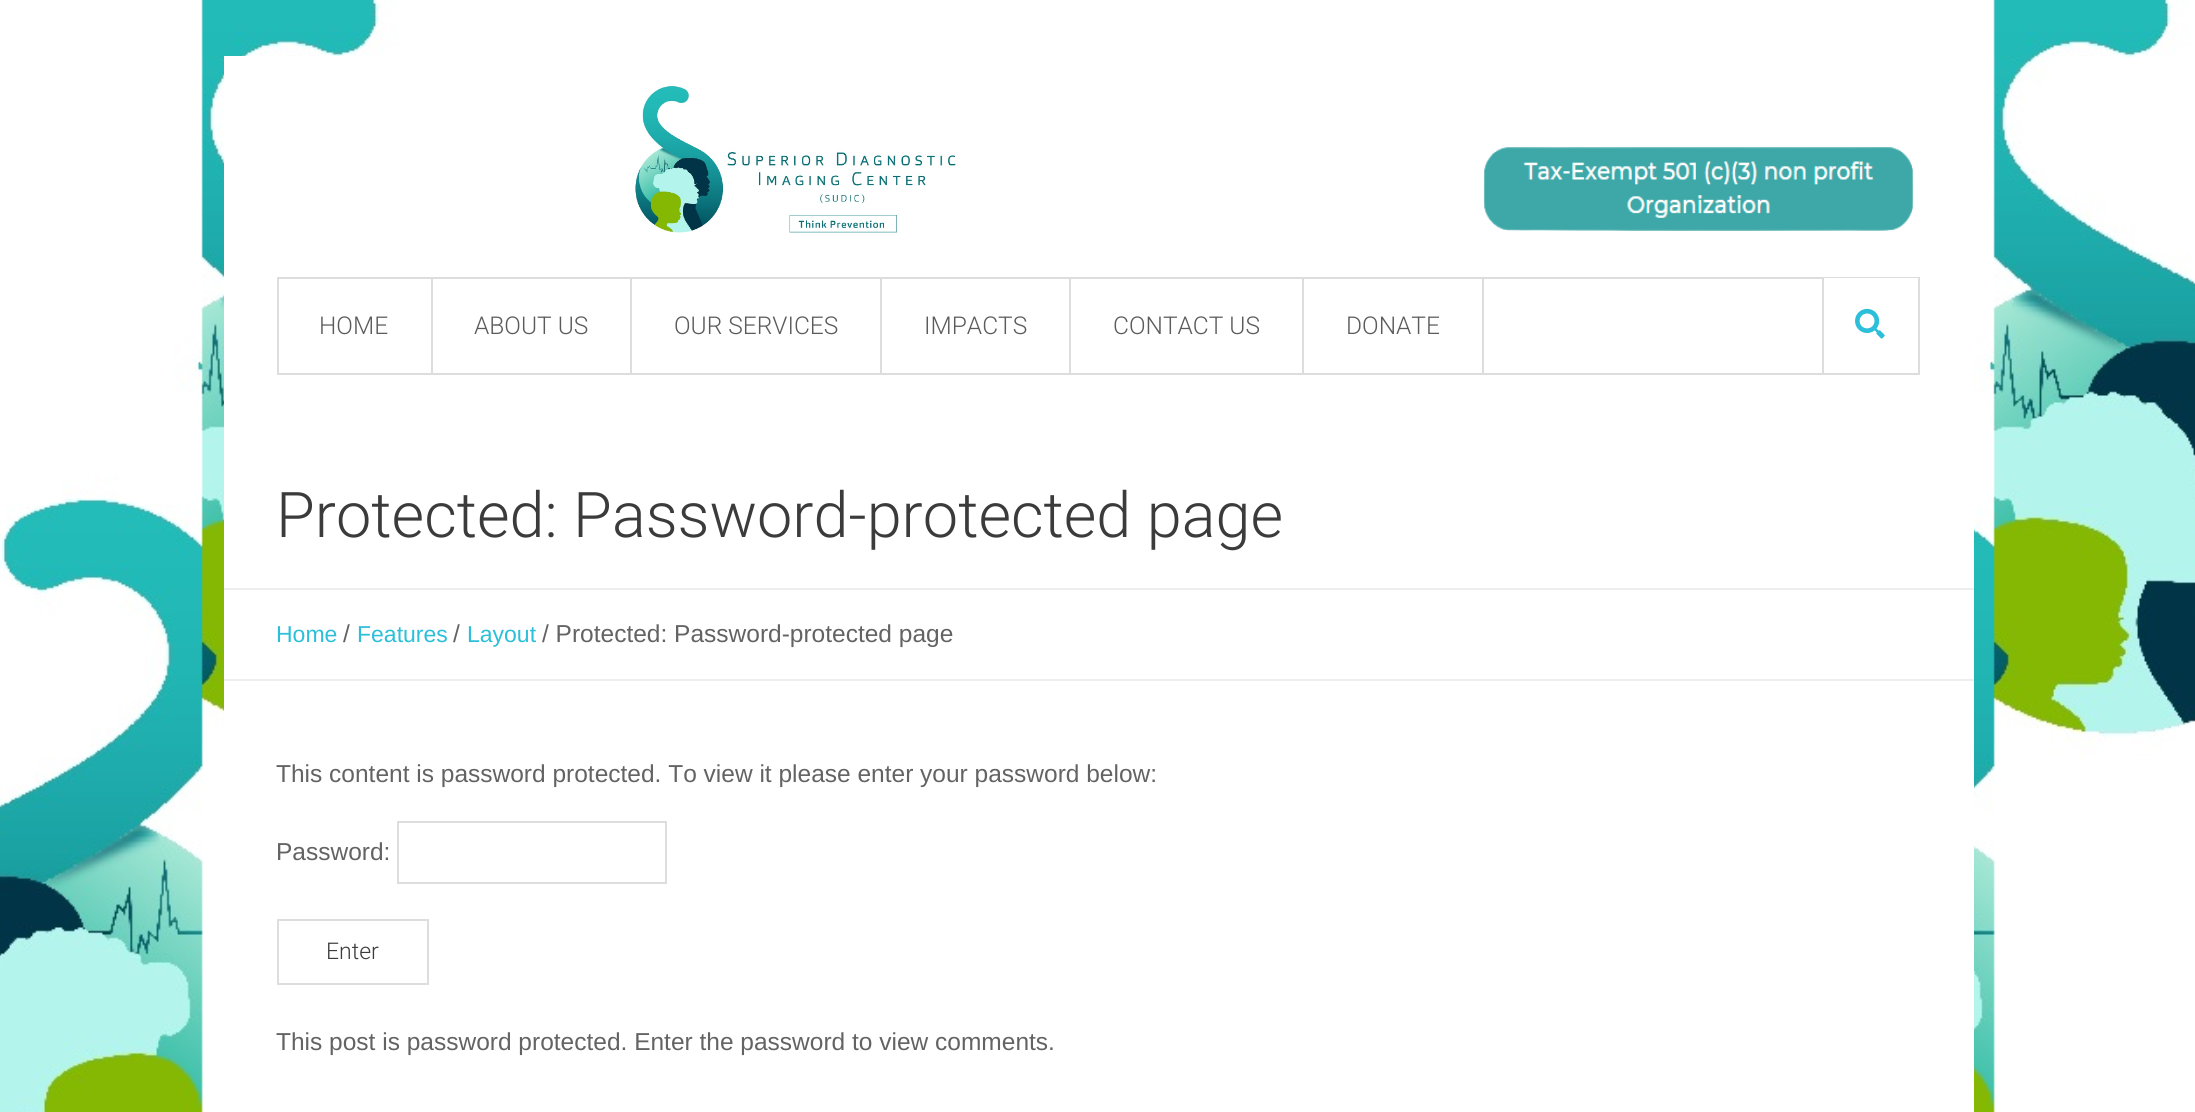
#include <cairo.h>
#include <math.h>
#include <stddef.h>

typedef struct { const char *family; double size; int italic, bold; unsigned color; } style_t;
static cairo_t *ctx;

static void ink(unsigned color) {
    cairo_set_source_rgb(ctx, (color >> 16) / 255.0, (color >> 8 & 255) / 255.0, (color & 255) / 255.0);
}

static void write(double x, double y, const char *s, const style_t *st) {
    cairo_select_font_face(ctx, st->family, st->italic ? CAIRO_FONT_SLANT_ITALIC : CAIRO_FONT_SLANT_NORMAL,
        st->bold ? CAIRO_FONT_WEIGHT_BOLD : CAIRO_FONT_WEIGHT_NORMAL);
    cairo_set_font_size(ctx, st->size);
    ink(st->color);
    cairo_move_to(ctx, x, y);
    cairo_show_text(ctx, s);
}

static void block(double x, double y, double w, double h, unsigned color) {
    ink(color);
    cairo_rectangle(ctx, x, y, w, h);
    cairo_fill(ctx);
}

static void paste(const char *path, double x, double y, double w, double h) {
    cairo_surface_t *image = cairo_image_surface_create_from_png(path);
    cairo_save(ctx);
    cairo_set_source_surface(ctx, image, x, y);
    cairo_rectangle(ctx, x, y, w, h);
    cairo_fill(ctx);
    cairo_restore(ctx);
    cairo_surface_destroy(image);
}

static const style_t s1 = {"Roboto Light", 24.5, 0, 0, 0x5b5b5b};
static const style_t s2 = {"Roboto Light", 63, 0, 0, 0x3b3b3b};
static const style_t s3 = {"Liberation Sans", 23, 0, 0, 0x2cbfd9};
static const style_t s4 = {"Liberation Sans", 24.5, 0, 0, 0x636363};
static const style_t s5 = {"Roboto Light", 23, 0, 0, 0x3b3b3b};

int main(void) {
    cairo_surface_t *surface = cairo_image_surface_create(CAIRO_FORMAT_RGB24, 2195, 1112);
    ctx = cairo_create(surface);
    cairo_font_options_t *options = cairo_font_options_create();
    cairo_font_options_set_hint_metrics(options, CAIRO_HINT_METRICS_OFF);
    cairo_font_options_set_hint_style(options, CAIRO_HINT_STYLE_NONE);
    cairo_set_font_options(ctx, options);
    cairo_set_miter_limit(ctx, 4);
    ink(0xffffff);
    cairo_paint(ctx);
    paste("pic1.png", 0, 0, 2195, 1112);
    block(224, 56, 1750, 1056, 0xffffff);
    paste("pic2.png", 635, 85, 321, 149);
    paste("pic3.png", 1483, 147, 431, 84);
    cairo_rectangle(ctx, 278, 278, 1641, 96);
    ink(0xdddddd);
    cairo_stroke(ctx);
    block(431, 278, 2, 95, 0xdddddd);
    write(319, 334, "HOME", &s1);
    block(630, 278, 2, 95, 0xdddddd);
    write(474, 334, "ABOUT US", &s1);
    block(880, 278, 2, 95, 0xdddddd);
    write(674, 334, "OUR SERVICES", &s1);
    block(1069, 278, 2, 95, 0xdddddd);
    write(924, 334, "IMPACTS", &s1);
    block(1302, 278, 2, 95, 0xdddddd);
    write(1113, 334, "CONTACT US", &s1);
    block(1482, 278, 2, 95, 0xdddddd);
    write(1346, 334, "DONATE", &s1);
    block(1824, 278, 94, 1, 0xffffff);
    block(1822, 278, 2, 95, 0xdddddd);
    paste("pic4.png", 1855, 308, 30, 31);
    write(276, 537, "Protected: Password-protected page", &s2);
    block(224, 588, 1750, 2, 0xeeeeee);
    write(276, 642, "Home", &s3);
    write(343, 642, "/", &s4);
    write(357, 642, "Features", &s3);
    write(453, 642, "/", &s4);
    write(467, 642, "Layout", &s3);
    write(542, 642, "/ Protected: Password-protected page", &s4);
    block(224, 679, 1750, 2, 0xeeeeee);
    write(276, 782, "This content is password protected. To view it please enter your password below:", &s4);
    write(276, 860, "Password:", &s4);
    cairo_rectangle(ctx, 398, 822, 268, 61);
    ink(0xdddddd);
    cairo_stroke(ctx);
    cairo_rectangle(ctx, 278, 920, 150, 64);
    cairo_stroke(ctx);
    write(326, 959, "Enter", &s5);
    write(276, 1050, "This post is password protected. Enter the password to view comments.", &s4);
    cairo_surface_write_to_png(surface, "screenshot.png");
    cairo_font_options_destroy(options);
    cairo_destroy(ctx);
    cairo_surface_destroy(surface);
    return 0;
}
